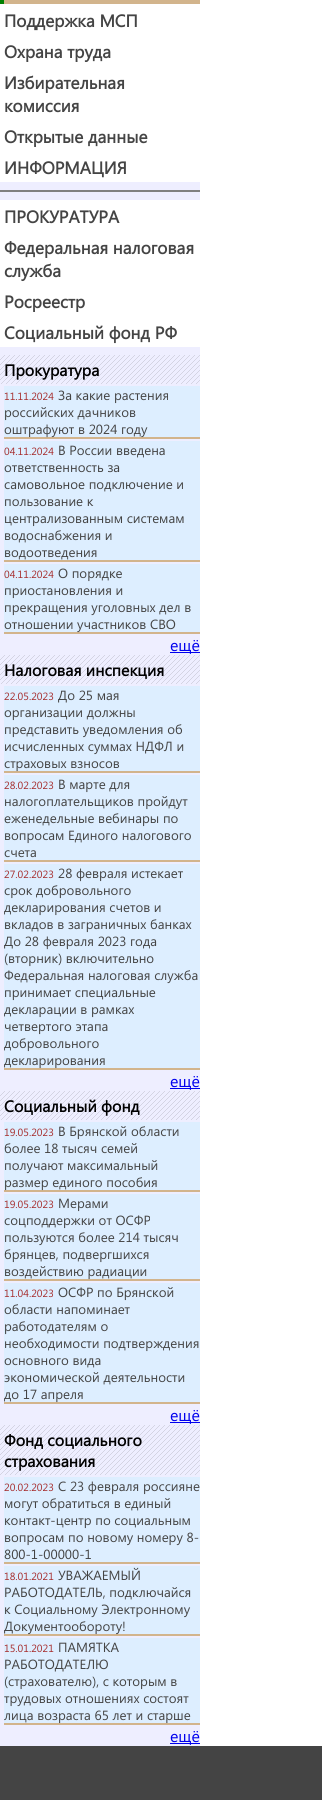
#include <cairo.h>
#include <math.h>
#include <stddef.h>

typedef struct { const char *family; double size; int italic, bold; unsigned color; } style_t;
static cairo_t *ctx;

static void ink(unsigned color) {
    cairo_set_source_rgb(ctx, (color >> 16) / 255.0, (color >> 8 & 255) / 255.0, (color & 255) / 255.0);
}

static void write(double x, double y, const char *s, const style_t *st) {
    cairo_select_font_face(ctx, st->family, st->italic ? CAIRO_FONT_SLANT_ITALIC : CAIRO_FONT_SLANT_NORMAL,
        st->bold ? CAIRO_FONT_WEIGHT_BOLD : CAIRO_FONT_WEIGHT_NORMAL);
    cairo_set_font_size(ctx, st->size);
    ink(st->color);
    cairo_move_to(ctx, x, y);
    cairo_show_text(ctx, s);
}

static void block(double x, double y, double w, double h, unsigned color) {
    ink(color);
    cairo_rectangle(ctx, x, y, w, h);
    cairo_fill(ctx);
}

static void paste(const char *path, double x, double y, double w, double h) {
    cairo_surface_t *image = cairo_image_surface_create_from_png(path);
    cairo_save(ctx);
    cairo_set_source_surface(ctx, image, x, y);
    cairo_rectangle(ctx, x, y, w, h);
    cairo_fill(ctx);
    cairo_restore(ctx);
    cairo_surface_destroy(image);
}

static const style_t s1 = {"Segoe UI", 17.25, 0, 1, 0x444444};
static const style_t s2 = {"Segoe UI", 16, 0, 1, 0x000000};
static const style_t s3 = {"Segoe UI", 10.5, 0, 0, 0xa52a2a};
static const style_t s4 = {"Segoe UI", 13.3, 0, 0, 0x444444};
static const style_t s5 = {"Segoe UI", 16, 0, 0, 0x0000ee};

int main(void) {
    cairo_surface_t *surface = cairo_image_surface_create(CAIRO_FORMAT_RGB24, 322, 1800);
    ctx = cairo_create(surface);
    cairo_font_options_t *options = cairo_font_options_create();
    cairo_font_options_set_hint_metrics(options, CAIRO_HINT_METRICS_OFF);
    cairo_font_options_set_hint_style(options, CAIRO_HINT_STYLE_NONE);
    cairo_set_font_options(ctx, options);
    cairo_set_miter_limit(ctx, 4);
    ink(0xffffff);
    cairo_paint(ctx);
    block(0, 182, 200, 1564, 0xeeeeff);
    block(0, 0, 200, 4, 0xd2b48c);
    block(0, 0, 4, 4, 0x008000);
    write(4, 27, "Поддержка МСП", &s1);
    write(4, 58, "Охрана труда", &s1);
    write(4, 89, "Избирательная", &s1);
    write(4, 112, "комиссия", &s1);
    write(4, 143, "Открытые данные", &s1);
    write(4, 174, "ИНФОРМАЦИЯ", &s1);
    block(0, 190, 200, 2, 0x808080);
    block(0, 200, 200, 147, 0xffffff);
    write(4, 223, "ПРОКУРАТУРА", &s1);
    write(4, 254, "Федеральная налоговая", &s1);
    write(4, 277, "служба", &s1);
    write(4, 308, "Росреестр", &s1);
    write(4, 339, "Социальный фонд РФ", &s1);
    paste("pic1.png", 0, 355, 200, 29);
    write(4, 376, "Прокуратура", &s2);
    block(4, 386, 196, 51, 0xddeeff);
    block(4, 437, 196, 2, 0xd2b48c);
    write(4, 400, "11.11.2024", &s3);
    write(58, 400, "За какие растения", &s4);
    write(4, 417, "российских дачников", &s4);
    write(4, 434, "оштрафуют в 2024 году", &s4);
    block(4, 441, 196, 119, 0xddeeff);
    block(4, 560, 196, 2, 0xd2b48c);
    write(4, 455, "04.11.2024", &s3);
    write(58, 455, "В России введена", &s4);
    write(4, 472, "ответственность за", &s4);
    write(4, 489, "самовольное подключение и", &s4);
    write(4, 506, "пользование к", &s4);
    write(4, 523, "централизованным системам", &s4);
    write(4, 540, "водоснабжения и", &s4);
    write(4, 557, "водоотведения", &s4);
    block(4, 564, 196, 68, 0xddeeff);
    block(4, 632, 196, 2, 0xd2b48c);
    write(4, 578, "04.11.2024", &s3);
    write(58, 578, "О порядке", &s4);
    write(4, 595, "приостановления и", &s4);
    write(4, 612, "прекращения уголовных дел в", &s4);
    write(4, 629, "отношении участников СВО", &s4);
    block(170, 652, 30, 1, 0x0000ee);
    write(170, 651, "ещё", &s5);
    paste("pic1.png", 0, 655, 200, 29);
    write(4, 676, "Налоговая инспекция", &s2);
    block(4, 686, 196, 85, 0xddeeff);
    block(4, 771, 196, 2, 0xd2b48c);
    write(4, 700, "22.05.2023", &s3);
    write(58, 700, "До 25 мая", &s4);
    write(4, 717, "организации должны", &s4);
    write(4, 734, "представить уведомления об", &s4);
    write(4, 751, "исчисленных суммах НДФЛ и", &s4);
    write(4, 768, "страховых взносов", &s4);
    block(4, 775, 196, 85, 0xddeeff);
    block(4, 860, 196, 2, 0xd2b48c);
    write(4, 789, "28.02.2023", &s3);
    write(58, 789, "В марте для", &s4);
    write(4, 806, "налогоплательщиков пройдут", &s4);
    write(4, 823, "еженедельные вебинары по", &s4);
    write(4, 840, "вопросам Единого налогового", &s4);
    write(4, 857, "счета", &s4);
    block(4, 864, 196, 204, 0xddeeff);
    block(4, 1068, 196, 2, 0xd2b48c);
    write(4, 878, "27.02.2023", &s3);
    write(58, 878, "28 февраля истекает", &s4);
    write(4, 895, "срок добровольного", &s4);
    write(4, 912, "декларирования счетов и", &s4);
    write(4, 929, "вкладов в заграничных банках", &s4);
    write(4, 946, "До 28 февраля 2023 года", &s4);
    write(4, 963, "(вторник) включительно", &s4);
    write(4, 980, "Федеральная налоговая служба", &s4);
    write(4, 997, "принимает специальные", &s4);
    write(4, 1014, "декларации в рамках", &s4);
    write(4, 1031, "четвертого этапа", &s4);
    write(4, 1048, "добровольного", &s4);
    write(4, 1065, "декларирования", &s4);
    block(170, 1088, 30, 1, 0x0000ee);
    write(170, 1087, "ещё", &s5);
    paste("pic1.png", 0, 1091, 200, 29);
    write(4, 1112, "Социальный фонд", &s2);
    block(4, 1122, 196, 68, 0xddeeff);
    block(4, 1190, 196, 2, 0xd2b48c);
    write(4, 1136, "19.05.2023", &s3);
    write(58, 1136, "В Брянской области", &s4);
    write(4, 1153, "более 18 тысяч семей", &s4);
    write(4, 1170, "получают максимальный", &s4);
    write(4, 1187, "размер единого пособия", &s4);
    block(4, 1194, 196, 85, 0xddeeff);
    block(4, 1279, 196, 2, 0xd2b48c);
    write(4, 1208, "19.05.2023", &s3);
    write(58, 1208, "Мерами", &s4);
    write(4, 1225, "соцподдержки от ОСФР", &s4);
    write(4, 1242, "пользуются более 214 тысяч", &s4);
    write(4, 1259, "брянцев, подвергшихся", &s4);
    write(4, 1276, "воздействию радиации", &s4);
    block(4, 1283, 196, 119, 0xddeeff);
    block(4, 1402, 196, 2, 0xd2b48c);
    write(4, 1297, "11.04.2023", &s3);
    write(58, 1297, "ОСФР по Брянской", &s4);
    write(4, 1314, "области напоминает", &s4);
    write(4, 1331, "работодателям о", &s4);
    write(4, 1348, "необходимости подтверждения", &s4);
    write(4, 1365, "основного вида", &s4);
    write(4, 1382, "экономической деятельности", &s4);
    write(4, 1399, "до 17 апреля", &s4);
    block(170, 1422, 30, 1, 0x0000ee);
    write(170, 1421, "ещё", &s5);
    paste("pic2.png", 0, 1425, 200, 50);
    write(4, 1446, "Фонд социального", &s2);
    write(4, 1467, "страхования", &s2);
    block(4, 1477, 196, 85, 0xddeeff);
    block(4, 1562, 196, 2, 0xd2b48c);
    write(4, 1491, "20.02.2023", &s3);
    write(58, 1491, "С 23 февраля россияне", &s4);
    write(4, 1508, "могут обратиться в единый", &s4);
    write(4, 1525, "контакт-центр по социальным", &s4);
    write(4, 1542, "вопросам по новому номеру 8-", &s4);
    write(4, 1559, "800-1-00000-1", &s4);
    block(4, 1566, 196, 68, 0xddeeff);
    block(4, 1634, 196, 2, 0xd2b48c);
    write(4, 1580, "18.01.2021", &s3);
    write(58, 1580, "УВАЖАЕМЫЙ", &s4);
    write(4, 1597, "РАБОТОДАТЕЛЬ, подключайся", &s4);
    write(4, 1614, "к Социальному Электронному", &s4);
    write(4, 1631, "Документообороту!", &s4);
    block(4, 1638, 196, 85, 0xddeeff);
    block(4, 1723, 196, 2, 0xd2b48c);
    write(4, 1652, "15.01.2021", &s3);
    write(58, 1652, "ПАМЯТКА", &s4);
    write(4, 1669, "РАБОТОДАТЕЛЮ", &s4);
    write(4, 1686, "(страхователю), с которым в", &s4);
    write(4, 1703, "трудовых отношениях состоят", &s4);
    write(4, 1720, "лица возраста 65 лет и старше", &s4);
    block(170, 1743, 30, 1, 0x0000ee);
    write(170, 1742, "ещё", &s5);
    block(0, 1746, 322, 54, 0x444444);
    cairo_surface_write_to_png(surface, "screenshot.png");
    cairo_font_options_destroy(options);
    cairo_destroy(ctx);
    cairo_surface_destroy(surface);
    return 0;
}
